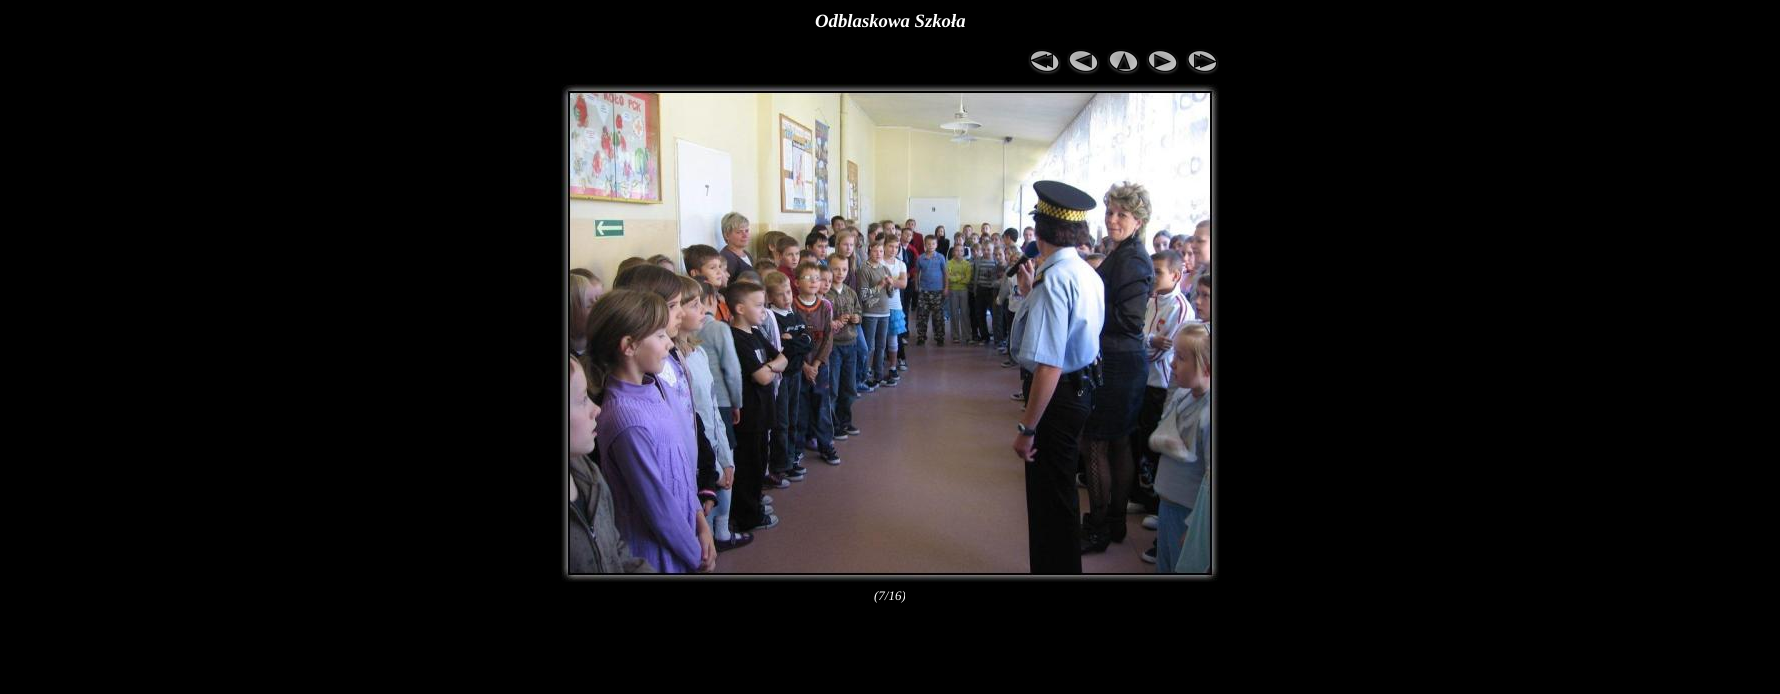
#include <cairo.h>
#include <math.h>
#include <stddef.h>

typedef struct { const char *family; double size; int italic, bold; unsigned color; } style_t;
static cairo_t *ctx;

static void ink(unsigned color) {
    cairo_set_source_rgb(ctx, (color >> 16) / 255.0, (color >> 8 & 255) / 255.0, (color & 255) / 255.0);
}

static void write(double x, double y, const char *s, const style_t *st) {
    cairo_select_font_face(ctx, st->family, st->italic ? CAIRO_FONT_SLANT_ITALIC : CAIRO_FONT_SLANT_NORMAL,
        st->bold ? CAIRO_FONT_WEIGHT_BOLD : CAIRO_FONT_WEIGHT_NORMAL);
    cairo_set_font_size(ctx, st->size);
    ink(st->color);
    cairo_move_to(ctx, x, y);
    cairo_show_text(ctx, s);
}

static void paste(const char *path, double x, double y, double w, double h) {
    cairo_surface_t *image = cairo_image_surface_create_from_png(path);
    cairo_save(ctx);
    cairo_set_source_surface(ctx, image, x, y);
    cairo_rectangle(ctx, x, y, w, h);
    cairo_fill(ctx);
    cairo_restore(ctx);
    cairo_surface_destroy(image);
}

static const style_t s1 = {"Liberation Serif", 18.75, 1, 1, 0xffffff};
static const style_t s2 = {"Liberation Serif", 13, 1, 0, 0xffffff};

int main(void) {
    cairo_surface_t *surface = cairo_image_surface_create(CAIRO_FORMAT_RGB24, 1780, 694);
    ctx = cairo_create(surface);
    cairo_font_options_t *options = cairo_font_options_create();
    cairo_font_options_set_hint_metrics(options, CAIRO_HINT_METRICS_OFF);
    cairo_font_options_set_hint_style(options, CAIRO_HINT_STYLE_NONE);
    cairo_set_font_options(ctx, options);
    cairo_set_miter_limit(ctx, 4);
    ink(0x000000);
    cairo_paint(ctx);
    write(815, 27, "Odblaskowa Szkoła", &s1);
    paste("pic1.png", 1028, 49, 33, 26);
    paste("pic2.png", 1067, 49, 33, 26);
    paste("pic3.png", 1107, 49, 33, 26);
    paste("pic4.png", 1146, 49, 33, 26);
    paste("pic5.png", 1186, 49, 33, 26);
    paste("pic6.png", 561, 84, 658, 498);
    write(874, 600, "(7/16)", &s2);
    cairo_surface_write_to_png(surface, "screenshot.png");
    cairo_font_options_destroy(options);
    cairo_destroy(ctx);
    cairo_surface_destroy(surface);
    return 0;
}
